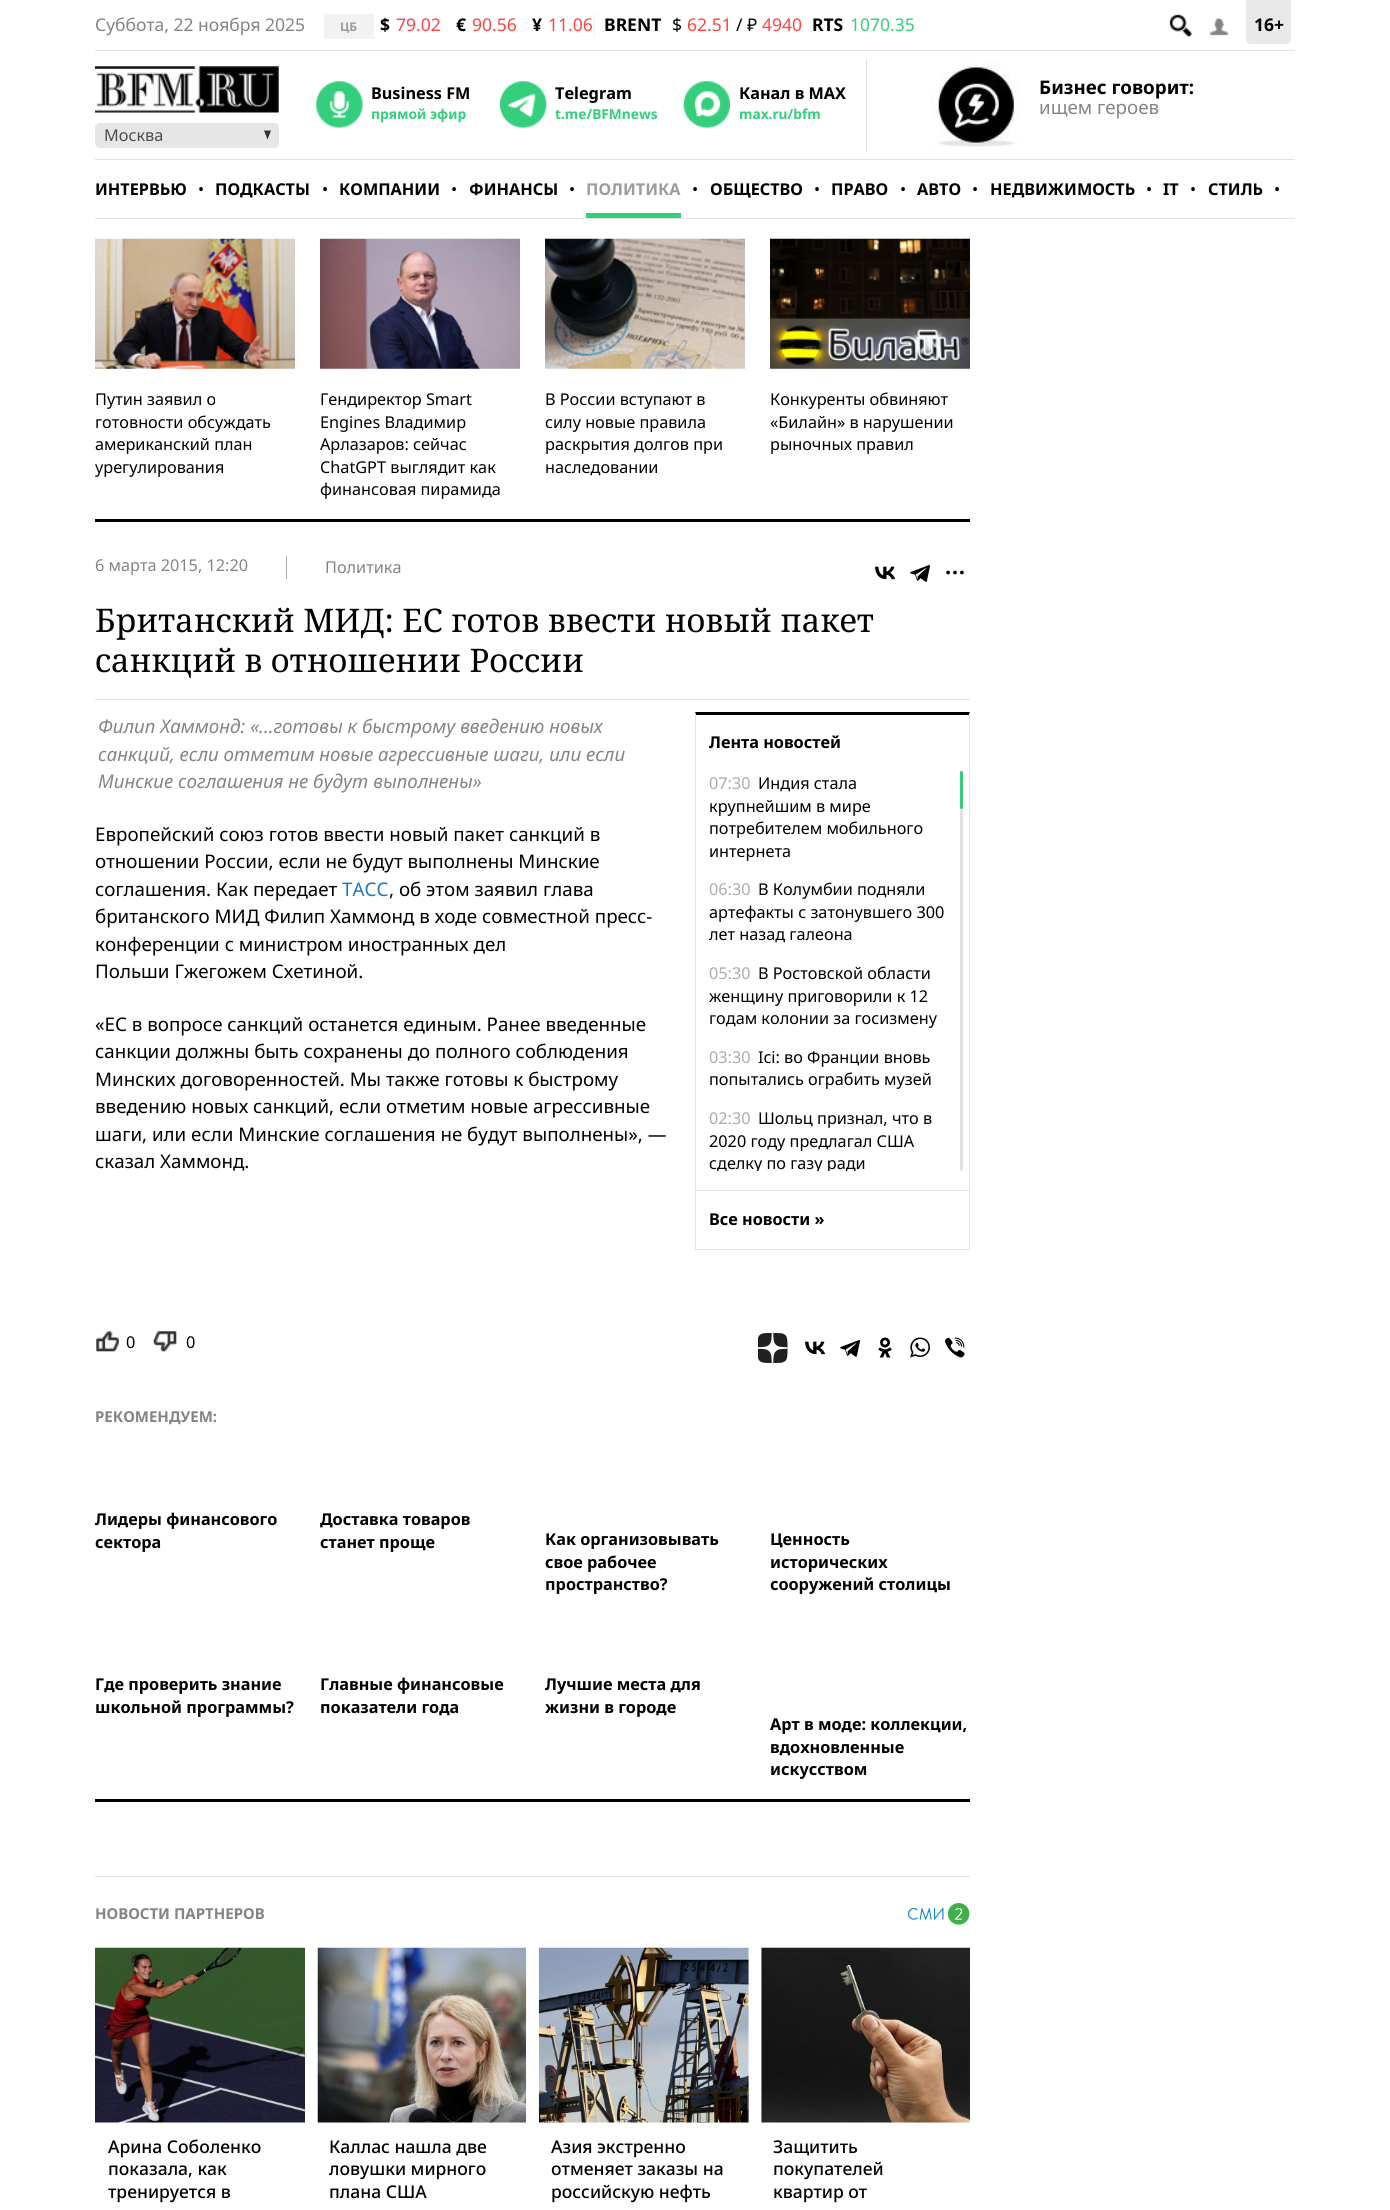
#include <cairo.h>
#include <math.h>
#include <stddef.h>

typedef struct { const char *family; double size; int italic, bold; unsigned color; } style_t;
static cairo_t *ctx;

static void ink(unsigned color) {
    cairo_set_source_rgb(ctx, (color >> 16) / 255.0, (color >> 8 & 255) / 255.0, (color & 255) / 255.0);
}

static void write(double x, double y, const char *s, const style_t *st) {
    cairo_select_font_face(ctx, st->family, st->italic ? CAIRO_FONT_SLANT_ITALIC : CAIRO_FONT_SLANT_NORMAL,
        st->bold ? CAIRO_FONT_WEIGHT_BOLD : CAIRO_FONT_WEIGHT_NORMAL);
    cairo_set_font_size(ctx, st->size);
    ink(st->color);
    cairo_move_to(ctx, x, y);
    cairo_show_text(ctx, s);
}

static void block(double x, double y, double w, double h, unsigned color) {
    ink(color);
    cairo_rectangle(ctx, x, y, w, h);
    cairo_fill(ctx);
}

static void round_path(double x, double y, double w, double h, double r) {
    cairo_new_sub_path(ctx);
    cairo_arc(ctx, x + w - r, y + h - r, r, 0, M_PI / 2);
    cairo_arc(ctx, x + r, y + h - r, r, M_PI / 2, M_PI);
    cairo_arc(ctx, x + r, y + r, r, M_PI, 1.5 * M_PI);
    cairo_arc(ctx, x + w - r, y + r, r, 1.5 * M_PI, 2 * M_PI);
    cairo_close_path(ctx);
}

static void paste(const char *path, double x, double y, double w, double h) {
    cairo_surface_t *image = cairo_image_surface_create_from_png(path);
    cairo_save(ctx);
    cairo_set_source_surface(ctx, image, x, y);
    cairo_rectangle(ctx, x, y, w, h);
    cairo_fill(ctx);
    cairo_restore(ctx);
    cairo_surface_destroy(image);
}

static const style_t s1 = {"Noto Sans", 17.5, 0, 0, 0x848484};
static const style_t s2 = {"Noto Sans", 12, 0, 1, 0x9c9c9c};
static const style_t s3 = {"Noto Sans", 17.5, 0, 1, 0x000000};
static const style_t s4 = {"Noto Sans", 17.5, 0, 0, 0xff4242};
static const style_t s5 = {"Noto Sans", 17.5, 0, 0, 0x000000};
static const style_t s6 = {"Noto Sans", 17.5, 0, 0, 0x34ce7c};
static const style_t s7 = {"Noto Sans", 16.25, 0, 1, 0x000000};
static const style_t s8 = {"Noto Sans", 13.75, 0, 1, 0x34ce7c};
static const style_t s9 = {"Noto Sans", 16.25, 0, 0, 0x4c4c4c};
static const style_t s10 = {"Noto Sans", 18.75, 0, 1, 0x000000};
static const style_t s11 = {"Noto Sans", 18.75, 0, 0, 0x848484};
static const style_t s12 = {"Noto Sans", 16.25, 0, 0, 0x000000};
static const style_t s13 = {"Noto Sans", 16.25, 0, 1, 0x9c9c9c};
static const style_t s14 = {"Noto Sans", 16.25, 0, 0, 0x848484};
static const style_t s15 = {"Noto Serif", 32.5, 0, 0, 0x000000};
static const style_t s16 = {"Noto Sans", 18.75, 1, 0, 0x848484};
static const style_t s17 = {"Noto Sans", 18.75, 0, 0, 0x000000};
static const style_t s18 = {"Noto Sans", 18.75, 0, 0, 0x1f77bb};
static const style_t s19 = {"Noto Sans", 16.25, 0, 0, 0xacacac};
static const style_t s20 = {"Noto Sans", 15, 0, 1, 0x848484};
static const style_t s21 = {"Noto Sans Medium", 17.5, 0, 0, 0x000000};

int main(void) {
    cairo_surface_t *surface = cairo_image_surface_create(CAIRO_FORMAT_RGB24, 1390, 2210);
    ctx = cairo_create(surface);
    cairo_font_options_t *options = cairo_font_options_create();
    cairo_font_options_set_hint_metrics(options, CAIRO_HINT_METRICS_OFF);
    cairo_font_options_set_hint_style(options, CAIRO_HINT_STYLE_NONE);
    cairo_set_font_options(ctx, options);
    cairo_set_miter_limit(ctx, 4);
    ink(0xffffff);
    cairo_paint(ctx);
    block(95, 50, 1200, 1, 0xe2e2e2);
    write(95, 31, "Суббота, 22 ноября 2025", &s1);
    block(324, 14, 50, 25, 0xf2f2f2);
    write(340, 31, "ЦБ", &s2);
    write(380, 31, "$", &s3);
    write(396, 31, "79.02", &s4);
    write(456, 31, "€", &s3);
    write(472, 31, "90.56", &s4);
    write(532, 31, "¥", &s3);
    write(548, 31, "11.06", &s4);
    block(594, 13, 1, 23, 0xf2f2f2);
    write(604, 31, "BRENT", &s3);
    write(672, 31, "$", &s5);
    write(687, 31, "62.51", &s4);
    write(736, 31, "/ ₽", &s5);
    write(762, 31, "4940", &s4);
    write(812, 31, "RTS", &s3);
    write(850, 31, "1070.35", &s6);
    paste("pic1.png", 1169, 14, 23, 23);
    paste("pic2.png", 1209, 17, 20, 19);
    ink(0xe9e9e9);
    cairo_new_path(ctx);
    cairo_move_to(ctx, 1246, 0);
    cairo_line_to(ctx, 1291, 0);
    cairo_line_to(ctx, 1291, 39);
    cairo_curve_to(ctx, 1291, 42, 1289, 44, 1286, 44);
    cairo_line_to(ctx, 1251, 44);
    cairo_curve_to(ctx, 1248, 44, 1246, 42, 1246, 39);
    cairo_close_path(ctx);
    cairo_fill(ctx);
    write(1254, 31, "16+", &s3);
    block(95, 159, 1200, 1, 0xe2e2e2);
    paste("pic3.png", 316, 81, 47, 47);
    write(371, 99, "Business FM", &s7);
    write(371, 119, "прямой эфир", &s8);
    paste("pic4.png", 500, 81, 47, 47);
    write(555, 99, "Telegram", &s7);
    write(555, 119, "t.me/BFMnews", &s8);
    paste("pic5.png", 683, 81, 47, 47);
    write(739, 99, "Канал в MAX", &s7);
    write(739, 119, "max.ru/bfm", &s8);
    block(866, 59, 1, 92, 0xe2e2e2);
    paste("pic6.png", 95, 66, 184, 47);
    ink(0xe6e6e6);
    round_path(95, 123, 184, 25, 5);
    cairo_fill(ctx);
    write(104, 141, "Москва", &s9);
    ink(0x333333);
    cairo_new_path(ctx);
    cairo_move_to(ctx, 264, 130.5);
    cairo_line_to(ctx, 271, 130.5);
    cairo_line_to(ctx, 267.5, 139.5);
    cairo_close_path(ctx);
    cairo_fill(ctx);
    paste("pic7.png", 930, 61, 90, 86);
    write(1039, 94, "Бизнес говорит:", &s10);
    write(1039, 114, "ищем героев", &s11);
    block(95, 218, 1200, 1, 0xe2e2e2);
    write(95, 195, "ИНТЕРВЬЮ", &s7);
    write(198, 195, "•", &s12);
    write(215, 195, "ПОДКАСТЫ", &s7);
    write(322, 195, "•", &s12);
    write(339, 195, "КОМПАНИИ", &s7);
    write(451, 195, "•", &s12);
    write(469, 195, "ФИНАНСЫ", &s7);
    write(569, 195, "•", &s12);
    block(586, 213, 95, 5, 0x34ce7c);
    write(586, 195, "ПОЛИТИКА", &s13);
    write(692, 195, "•", &s12);
    write(710, 195, "ОБЩЕСТВО", &s7);
    write(814, 195, "•", &s12);
    write(831, 195, "ПРАВО", &s7);
    write(900, 195, "•", &s12);
    write(917, 195, "АВТО", &s7);
    write(972, 195, "•", &s12);
    write(990, 195, "НЕДВИЖИМОСТЬ", &s7);
    write(1146, 195, "•", &s12);
    write(1163, 195, "IT", &s7);
    write(1190, 195, "•", &s12);
    write(1208, 195, "СТИЛЬ", &s7);
    write(1274, 195, "•", &s12);
    block(95, 519, 875, 3, 0x000000);
    paste("pic8.png", 95, 238, 200, 131);
    write(95, 405, "Путин заявил о", &s12);
    write(95, 428, "готовности обсуждать", &s12);
    write(95, 450, "американский план", &s12);
    write(95, 473, "урегулирования", &s12);
    paste("pic9.png", 320, 238, 200, 131);
    write(320, 405, "Гендиректор Smart", &s12);
    write(320, 428, "Engines Владимир", &s12);
    write(320, 450, "Арлазаров: сейчас", &s12);
    write(320, 473, "ChatGPT выглядит как", &s12);
    write(320, 495, "финансовая пирамида", &s12);
    paste("pic10.png", 545, 238, 200, 131);
    write(545, 405, "В России вступают в", &s12);
    write(545, 428, "силу новые правила", &s12);
    write(545, 450, "раскрытия долгов при", &s12);
    write(545, 473, "наследовании", &s12);
    paste("pic11.png", 770, 238, 200, 131);
    write(770, 405, "Конкуренты обвиняют", &s12);
    write(770, 428, "«Билайн» в нарушении", &s12);
    write(770, 450, "рыночных правил", &s12);
    write(95, 571, "6 марта 2015, 12:20", &s14);
    block(286, 556, 1, 23, 0xaaaaaa);
    write(325, 573, "Политика", &s14);
    paste("pic12.png", 875, 566, 20, 14);
    paste("pic13.png", 910, 565, 20, 17);
    paste("pic14.png", 946, 570, 18, 5);
    block(95, 699, 875, 1, 0xe1e1e1);
    write(95, 632, "Британский МИД: ЕС готов ввести новый пакет", &s15);
    write(95, 672, "санкций в отношении России", &s15);
    write(98, 733, "Филип Хаммонд: «...готовы к быстрому введению новых", &s16);
    write(98, 761, "санкций, если отметим новые агрессивные шаги, или если", &s16);
    write(98, 788, "Минские соглашения не будут выполнены»", &s16);
    write(95, 841, "Европейский союз готов ввести новый пакет санкций в", &s17);
    write(95, 868, "отношении России, если не будут выполнены Минские", &s17);
    write(95, 896, "соглашения. Как передает", &s17);
    write(342, 896, "ТАСС", &s18);
    write(389, 896, ", об этом заявил глава", &s17);
    write(95, 923, "британского МИД Филип Хаммонд в ходе совместной пресс-", &s17);
    write(95, 951, "конференции с министром иностранных дел", &s17);
    write(95, 978, "Польши Гжегожем Схетиной.", &s17);
    write(95, 1031, "«ЕС в вопросе санкций останется единым. Ранее введенные", &s17);
    write(95, 1058, "санкции должны быть сохранены до полного соблюдения", &s17);
    write(95, 1086, "Минских договоренностей. Мы также готовы к быстрому", &s17);
    write(95, 1113, "введению новых санкций, если отметим новые агрессивные", &s17);
    write(95, 1141, "шаги, или если Минские соглашения не будут выполнены», —", &s17);
    write(95, 1168, "сказал Хаммонд.", &s17);
    cairo_new_path(ctx);
    cairo_move_to(ctx, 695, 712);
    cairo_line_to(ctx, 970, 712);
    cairo_line_to(ctx, 969, 715);
    cairo_line_to(ctx, 696, 715);
    cairo_close_path(ctx);
    cairo_fill(ctx);
    ink(0xe2e2e2);
    cairo_new_path(ctx);
    cairo_move_to(ctx, 970, 712);
    cairo_line_to(ctx, 970, 1250);
    cairo_line_to(ctx, 969, 1250);
    cairo_line_to(ctx, 969, 715);
    cairo_close_path(ctx);
    cairo_fill(ctx);
    cairo_new_path(ctx);
    cairo_move_to(ctx, 695, 1250);
    cairo_line_to(ctx, 695, 712);
    cairo_line_to(ctx, 696, 715);
    cairo_line_to(ctx, 696, 1250);
    cairo_close_path(ctx);
    cairo_fill(ctx);
    block(696, 1190, 273, 1, 0xe2e2e2);
    write(709, 748, "Лента новостей", &s7);
    ink(0xe2e2e2);
    round_path(960, 771, 3, 400, 1.5);
    cairo_fill(ctx);
    write(709, 789, "07:30", &s19);
    write(758, 789, "Индия стала", &s12);
    write(709, 812, "крупнейшим в мире", &s12);
    write(709, 834, "потребителем мобильного", &s12);
    write(709, 857, "интернета", &s12);
    write(709, 895, "06:30", &s19);
    write(758, 895, "В Колумбии подняли", &s12);
    write(709, 918, "артефакты с затонувшего 300", &s12);
    write(709, 940, "лет назад галеона", &s12);
    write(709, 979, "05:30", &s19);
    write(758, 979, "В Ростовской области", &s12);
    write(709, 1002, "женщину приговорили к 12", &s12);
    write(709, 1024, "годам колонии за госизмену", &s12);
    write(709, 1063, "03:30", &s19);
    write(758, 1063, "Ici: во Франции вновь", &s12);
    write(709, 1085, "попытались ограбить музей", &s12);
    write(709, 1124, "02:30", &s19);
    write(758, 1124, "Шольц признал, что в", &s12);
    write(709, 1147, "2020 году предлагал США", &s12);
    cairo_save(ctx);
    cairo_rectangle(ctx, 709, 771, 260, 400);
    cairo_clip(ctx);
    write(709, 1169, "сделку по газу ради", &s12);
    cairo_restore(ctx);
    ink(0x34ce7c);
    round_path(960, 771, 3, 38, 1.5);
    cairo_fill(ctx);
    block(696, 1249, 273, 1, 0xe2e2e2);
    write(709, 1225, "Все новости »", &s7);
    paste("pic15.png", 96, 1331, 24, 21);
    write(126, 1348, "0", &s12);
    paste("pic16.png", 153, 1331, 24, 21);
    write(186, 1348, "0", &s12);
    paste("pic17.png", 758, 1333, 30, 30);
    paste("pic12.png", 805, 1341, 20, 14);
    paste("pic13.png", 840, 1340, 20, 17);
    paste("pic18.png", 878, 1337, 14, 21);
    paste("pic19.png", 910, 1337, 20, 21);
    paste("pic20.png", 945, 1337, 20, 21);
    block(95, 1799, 875, 3, 0x000000);
    write(95, 1422, "РЕКОМЕНДУЕМ:", &s20);
    write(95, 1525, "Лидеры финансового", &s7);
    write(95, 1548, "сектора", &s7);
    write(320, 1525, "Доставка товаров", &s7);
    write(320, 1548, "станет проще", &s7);
    write(545, 1545, "Как организовывать", &s7);
    write(545, 1568, "свое рабочее", &s7);
    write(545, 1590, "пространство?", &s7);
    write(770, 1545, "Ценность", &s7);
    write(770, 1568, "исторических", &s7);
    write(770, 1590, "cооружений столицы", &s7);
    write(95, 1690, "Где проверить знание", &s7);
    write(95, 1713, "школьной программы?", &s7);
    write(320, 1690, "Главные финансовые", &s7);
    write(320, 1713, "показатели года", &s7);
    write(545, 1690, "Лучшие места для", &s7);
    write(545, 1713, "жизни в городе", &s7);
    write(770, 1730, "Арт в моде: коллекции,", &s7);
    write(770, 1753, "вдохновленные", &s7);
    write(770, 1775, "искусством", &s7);
    block(95, 1876, 875, 1, 0xe1e1e1);
    write(95, 1919, "НОВОСТИ ПАРТНЕРОВ", &s20);
    paste("pic21.png", 908, 1903, 62, 22);
    paste("pic22.png", 95, 1947, 210, 176);
    write(108, 2153, "Арина Соболенко", &s21);
    write(108, 2175, "показала, как", &s21);
    write(108, 2198, "тренируется в", &s21);
    paste("pic23.png", 317, 1947, 210, 176);
    write(329, 2153, "Каллас нашла две", &s21);
    write(329, 2175, "ловушки мирного", &s21);
    write(329, 2198, "плана США", &s21);
    paste("pic24.png", 538, 1947, 211, 176);
    write(551, 2153, "Азия экстренно", &s21);
    write(551, 2175, "отменяет заказы на", &s21);
    write(551, 2198, "российскую нефть", &s21);
    paste("pic25.png", 761, 1947, 209, 176);
    write(773, 2153, "Защитить", &s21);
    write(773, 2175, "покупателей", &s21);
    write(773, 2198, "квартир от", &s21);
    cairo_surface_write_to_png(surface, "screenshot.png");
    cairo_font_options_destroy(options);
    cairo_destroy(ctx);
    cairo_surface_destroy(surface);
    return 0;
}
